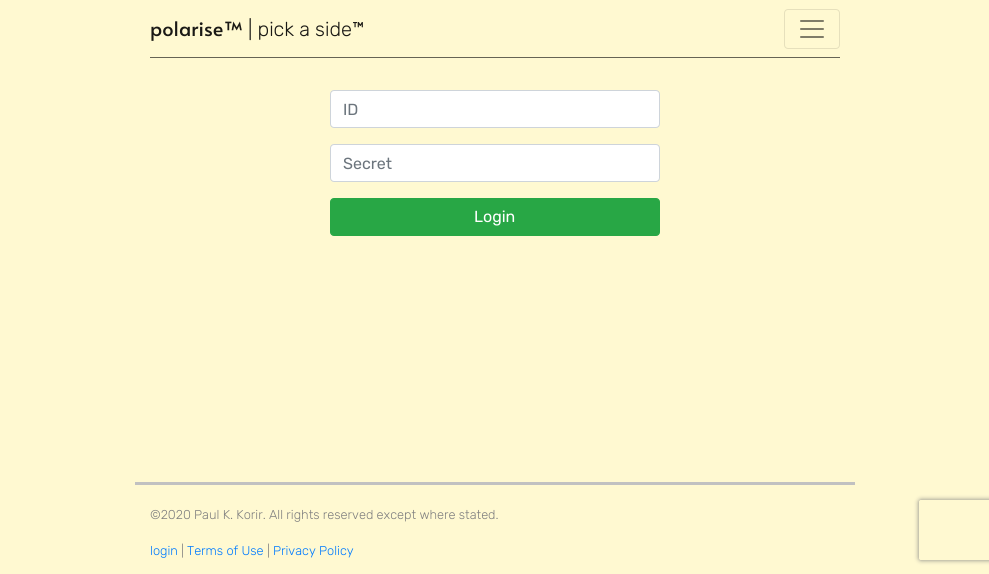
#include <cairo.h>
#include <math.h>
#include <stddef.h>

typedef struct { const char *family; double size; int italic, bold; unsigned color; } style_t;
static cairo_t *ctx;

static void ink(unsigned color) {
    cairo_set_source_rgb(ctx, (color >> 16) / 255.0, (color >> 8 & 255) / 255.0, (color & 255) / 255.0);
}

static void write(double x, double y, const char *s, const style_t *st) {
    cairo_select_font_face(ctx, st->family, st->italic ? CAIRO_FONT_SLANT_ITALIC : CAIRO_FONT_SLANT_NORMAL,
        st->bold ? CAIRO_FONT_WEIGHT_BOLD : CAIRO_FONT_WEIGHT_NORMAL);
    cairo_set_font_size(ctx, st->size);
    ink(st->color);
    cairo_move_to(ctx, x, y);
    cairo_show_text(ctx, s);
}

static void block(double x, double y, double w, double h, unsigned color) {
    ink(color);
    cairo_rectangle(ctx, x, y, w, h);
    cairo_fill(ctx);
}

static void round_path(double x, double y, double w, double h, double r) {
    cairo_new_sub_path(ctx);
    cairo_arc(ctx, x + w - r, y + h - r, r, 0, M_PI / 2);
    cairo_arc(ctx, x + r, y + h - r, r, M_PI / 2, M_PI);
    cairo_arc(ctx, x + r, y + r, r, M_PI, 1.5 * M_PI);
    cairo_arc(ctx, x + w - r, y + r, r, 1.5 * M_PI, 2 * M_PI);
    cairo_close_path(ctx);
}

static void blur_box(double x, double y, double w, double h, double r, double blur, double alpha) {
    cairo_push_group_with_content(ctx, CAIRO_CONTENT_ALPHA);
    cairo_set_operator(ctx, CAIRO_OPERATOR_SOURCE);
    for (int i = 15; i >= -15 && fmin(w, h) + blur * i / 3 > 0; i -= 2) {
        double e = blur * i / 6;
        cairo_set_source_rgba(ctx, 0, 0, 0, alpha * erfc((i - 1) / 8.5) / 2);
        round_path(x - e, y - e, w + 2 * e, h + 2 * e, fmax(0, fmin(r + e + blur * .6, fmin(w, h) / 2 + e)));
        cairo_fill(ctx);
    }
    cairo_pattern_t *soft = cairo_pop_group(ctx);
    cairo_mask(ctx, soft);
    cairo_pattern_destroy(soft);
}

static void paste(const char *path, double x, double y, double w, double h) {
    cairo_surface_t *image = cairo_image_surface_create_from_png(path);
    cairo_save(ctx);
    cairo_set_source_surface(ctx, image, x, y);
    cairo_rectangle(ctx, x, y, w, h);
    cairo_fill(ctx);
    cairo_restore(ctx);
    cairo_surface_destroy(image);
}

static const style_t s1 = {"Alata", 20, 0, 0, 0x1a1915};
static const style_t s2 = {"Rubik Light", 20, 0, 0, 0x1a1915};
static const style_t s3 = {"Rubik", 16, 0, 0, 0x6c757d};
static const style_t s4 = {"Rubik", 16, 0, 0, 0xffffff};
static const style_t s5 = {"Rubik Light", 12.8, 0, 0, 0x808080};
static const style_t s6 = {"Rubik Light", 12.8, 0, 0, 0x007bff};

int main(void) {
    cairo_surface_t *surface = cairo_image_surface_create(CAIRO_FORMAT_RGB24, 989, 574);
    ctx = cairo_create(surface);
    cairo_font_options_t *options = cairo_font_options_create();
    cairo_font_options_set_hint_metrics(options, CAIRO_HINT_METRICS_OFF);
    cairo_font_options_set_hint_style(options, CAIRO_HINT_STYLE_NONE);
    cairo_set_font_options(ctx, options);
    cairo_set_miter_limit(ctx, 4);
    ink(0xfff9d1);
    cairo_paint(ctx);
    block(150, 57, 690, 1, 0x666454);
    write(150, 36, "polarise™", &s1);
    write(248, 36, "| pick a side™", &s2);
    round_path(784.5, 9.5, 55, 39, 3.5);
    ink(0xe6e0bc);
    cairo_set_line_width(ctx, 1);
    cairo_stroke(ctx);
    paste("pic1.png", 800, 20, 24, 18);
    ink(0xffffff);
    round_path(330.5, 90.5, 329, 37, 3.5);
    cairo_fill_preserve(ctx);
    ink(0xced4da);
    cairo_stroke(ctx);
    write(343, 115, "ID", &s3);
    ink(0xffffff);
    round_path(330.5, 144.5, 329, 37, 3.5);
    cairo_fill_preserve(ctx);
    ink(0xced4da);
    cairo_stroke(ctx);
    write(343, 169, "Secret", &s3);
    ink(0x28a745);
    round_path(330.5, 198.5, 329, 37, 3.5);
    cairo_fill_preserve(ctx);
    cairo_stroke(ctx);
    write(474, 222, "Login", &s4);
    cairo_save(ctx);
    cairo_set_fill_rule(ctx, CAIRO_FILL_RULE_EVEN_ODD);
    cairo_new_path(ctx);
    cairo_move_to(ctx, 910, 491);
    cairo_line_to(ctx, 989, 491);
    cairo_line_to(ctx, 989, 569);
    cairo_line_to(ctx, 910, 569);
    cairo_close_path(ctx);
    cairo_move_to(ctx, 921, 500);
    cairo_line_to(ctx, 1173, 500);
    cairo_curve_to(ctx, 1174, 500, 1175, 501, 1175, 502);
    cairo_line_to(ctx, 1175, 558);
    cairo_curve_to(ctx, 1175, 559, 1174, 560, 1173, 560);
    cairo_line_to(ctx, 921, 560);
    cairo_curve_to(ctx, 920, 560, 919, 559, 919, 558);
    cairo_line_to(ctx, 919, 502);
    cairo_curve_to(ctx, 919, 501, 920, 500, 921, 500);
    cairo_close_path(ctx);
    cairo_clip(ctx);
    ink(0x808080);
    blur_box(919, 500, 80, 60, 2, 2.5, 1);
    cairo_restore(ctx);
    block(135, 482, 720, 3, 0xc1c1c1);
    write(150, 519, "©2020 Paul K. Korir. All rights reserved except where stated.", &s5);
    write(150, 555, "login", &s6);
    write(181, 555, "|", &s5);
    write(187, 555, "Terms of Use", &s6);
    write(267, 555, "|", &s5);
    write(273, 555, "Privacy Policy", &s6);
    cairo_surface_write_to_png(surface, "screenshot.png");
    cairo_font_options_destroy(options);
    cairo_destroy(ctx);
    cairo_surface_destroy(surface);
    return 0;
}
